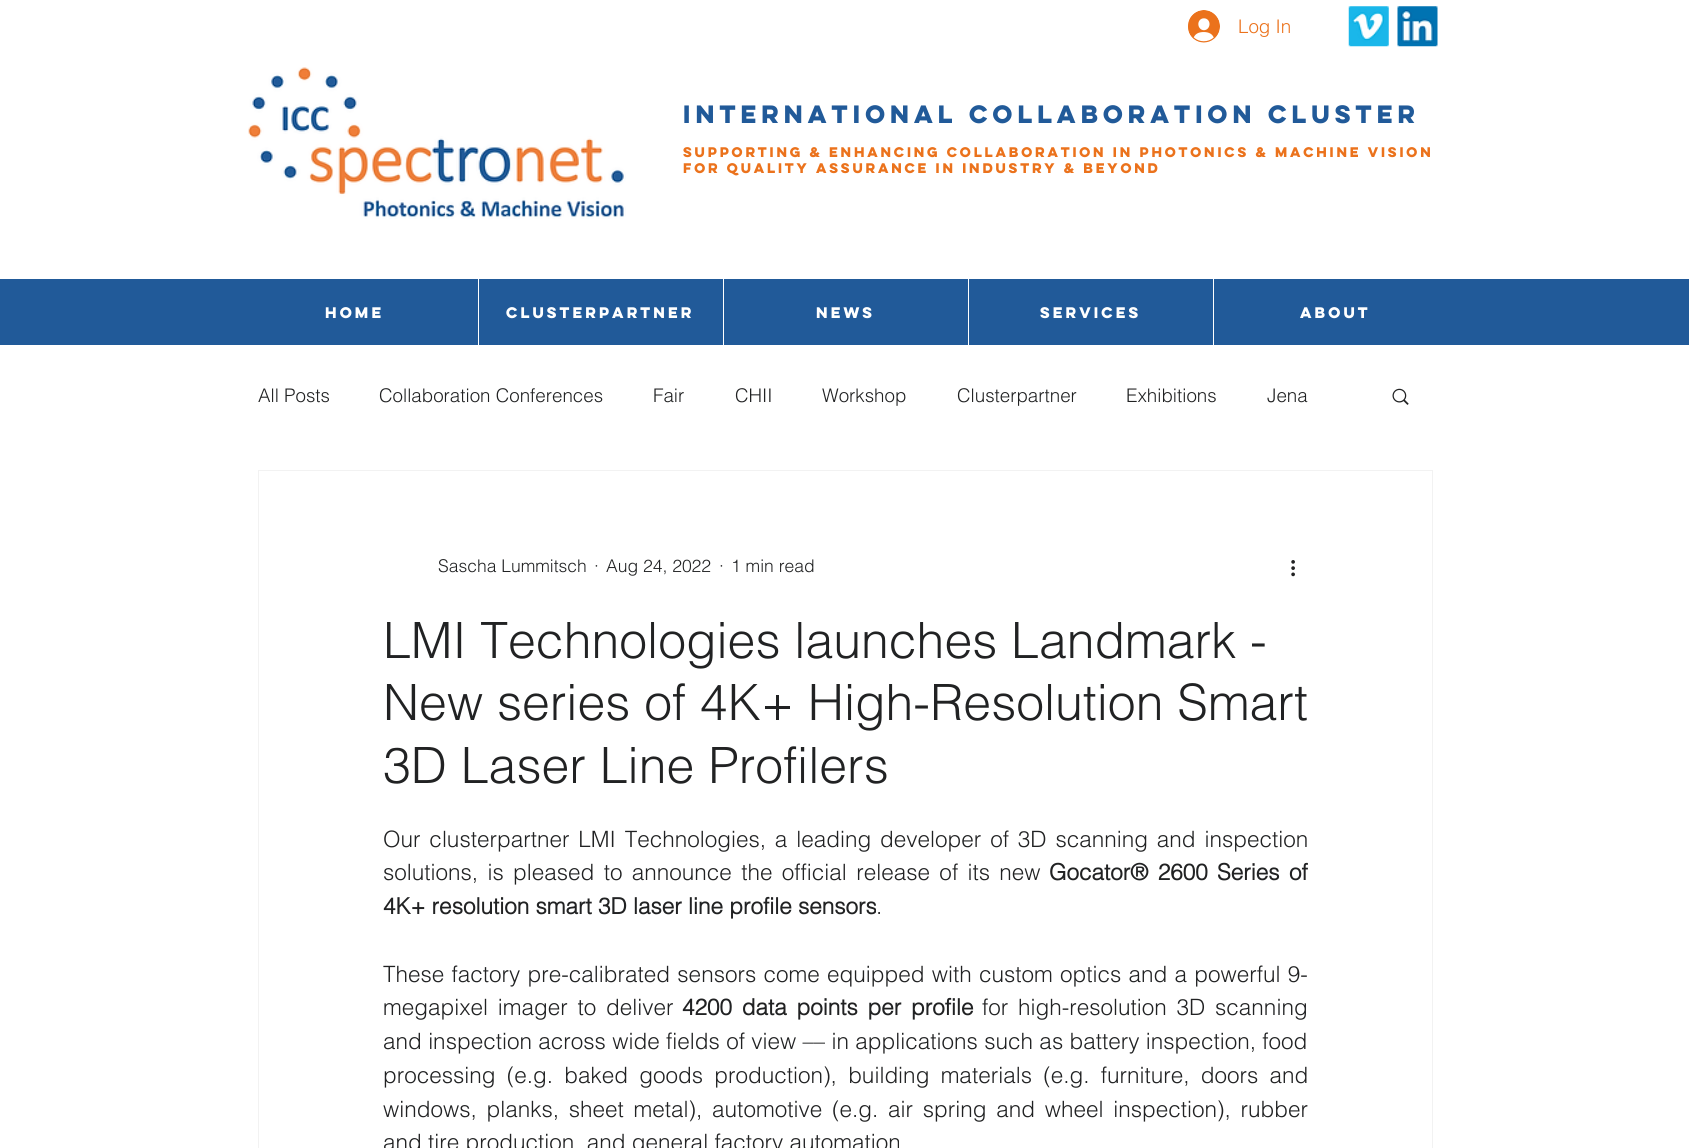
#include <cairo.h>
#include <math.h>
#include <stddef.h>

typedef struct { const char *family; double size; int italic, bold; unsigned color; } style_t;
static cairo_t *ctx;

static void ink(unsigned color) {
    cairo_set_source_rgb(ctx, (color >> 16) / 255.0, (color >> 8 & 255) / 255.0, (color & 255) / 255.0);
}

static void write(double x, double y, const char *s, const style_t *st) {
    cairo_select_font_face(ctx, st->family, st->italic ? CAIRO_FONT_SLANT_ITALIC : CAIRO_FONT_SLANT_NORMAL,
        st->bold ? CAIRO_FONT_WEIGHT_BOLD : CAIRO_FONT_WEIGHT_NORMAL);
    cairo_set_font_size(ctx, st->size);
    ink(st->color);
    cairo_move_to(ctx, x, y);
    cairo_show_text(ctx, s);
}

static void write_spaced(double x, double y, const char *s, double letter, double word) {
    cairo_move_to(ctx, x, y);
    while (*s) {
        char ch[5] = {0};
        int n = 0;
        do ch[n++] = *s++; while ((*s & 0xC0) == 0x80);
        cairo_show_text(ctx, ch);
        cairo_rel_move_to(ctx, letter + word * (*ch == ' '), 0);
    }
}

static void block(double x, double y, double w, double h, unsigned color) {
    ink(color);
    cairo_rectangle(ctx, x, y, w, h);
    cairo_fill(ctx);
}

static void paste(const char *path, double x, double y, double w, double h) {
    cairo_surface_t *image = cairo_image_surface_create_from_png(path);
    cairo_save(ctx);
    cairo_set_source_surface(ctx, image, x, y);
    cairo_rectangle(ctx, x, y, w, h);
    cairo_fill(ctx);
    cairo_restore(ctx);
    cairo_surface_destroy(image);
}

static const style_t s1 = {"helvetica Light", 18.75, 0, 0, 0xeb721c};
static const style_t s2 = {"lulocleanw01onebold", 22.5, 0, 1, 0x215a99};
static const style_t s3 = {"lulocleanw01onebold", 12.5, 0, 1, 0xeb721c};
static const style_t s4 = {"lulocleanw01onebold", 13.75, 0, 1, 0xffffff};
static const style_t s5 = {"helvetica Light", 18.75, 0, 0, 0x212223};
static const style_t s6 = {"helvetica Light", 17.5, 0, 0, 0x212223};
static const style_t s7 = {"helvetica Light", 50, 0, 0, 0x212223};
static const style_t s8 = {"helvetica", 22.5, 0, 1, 0x212223};
static const style_t s9 = {"helvetica Light", 22.5, 0, 0, 0x212223};

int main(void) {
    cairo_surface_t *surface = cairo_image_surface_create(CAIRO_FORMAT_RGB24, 1689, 1148);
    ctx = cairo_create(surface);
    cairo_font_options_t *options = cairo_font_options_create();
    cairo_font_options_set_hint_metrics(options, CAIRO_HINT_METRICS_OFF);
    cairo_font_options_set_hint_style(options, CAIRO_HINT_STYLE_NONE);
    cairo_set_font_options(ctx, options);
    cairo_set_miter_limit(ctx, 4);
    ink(0xffffff);
    cairo_paint(ctx);
    paste("pic1.png", 1188, 10, 32, 33);
    write(1238, 33, "Log In", &s1);
    paste("pic2.png", 1348, 6, 41, 41);
    paste("pic3.png", 1397, 6, 41, 41);
    paste("pic4.png", 248, 67, 378, 152);
    write(683, 123, "International Collaboration Cluster", &s2);
    write(683, 157, "Supporting & Enhancing Collaboration in Photonics & Machine Vision", &s3);
    write(683, 173, "for Quality Assurance in Industry & Beyond", &s3);
    block(0, 279, 1689, 66, 0x215a99);
    write(325, 318, "Home", &s4);
    block(478, 279, 1, 66, 0xffffff);
    write(506, 318, "Clusterpartner", &s4);
    block(723, 279, 1, 66, 0xffffff);
    write(816, 318, "News", &s4);
    block(968, 279, 1, 66, 0xffffff);
    write(1040, 318, "Services", &s4);
    block(1213, 279, 1, 66, 0xffffff);
    write(1300, 318, "About", &s4);
    write(258, 402, "All Posts", &s5);
    write(379, 402, "Collaboration Conferences", &s5);
    write(653, 402, "Fair", &s5);
    write(735, 402, "CHII", &s5);
    write(822, 402, "Workshop", &s5);
    write(957, 402, "Clusterpartner", &s5);
    write(1126, 402, "Exhibitions", &s5);
    write(1267, 402, "Jena", &s5);
    paste("pic5.png", 1392, 388, 17, 17);
    cairo_rectangle(ctx, 258.5, 470.5, 1174, 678);
    ink(0xf2f2f2);
    cairo_set_line_width(ctx, 1);
    cairo_stroke(ctx);
    write(438, 572, "Sascha Lummitsch", &s6);
    write(594, 572, "·", &s6);
    write(606, 572, "Aug 24, 2022", &s6);
    write(719, 572, "·", &s6);
    write(731, 572, "1 min read", &s6);
    paste("pic6.png", 1291, 560, 4, 17);
    write(383, 658, "LMI Technologies launches Landmark -", &s7);
    write(383, 720, "New series of 4K+ High-Resolution Smart", &s7);
    write(383, 783, "3D Laser Line Profilers", &s7);
    cairo_set_font_size(ctx, 22.5);
    write_spaced(383, 847, "Our clusterpartner LMI Technologies, a leading developer of 3D scanning and inspection", 0, 2.6);
    write_spaced(383, 880, "solutions, is pleased to announce the official release of its new", 0, 3.1);
    cairo_select_font_face(ctx, "helvetica", CAIRO_FONT_SLANT_NORMAL, CAIRO_FONT_WEIGHT_BOLD);
    write_spaced(1049, 880, "Gocator® 2600 Series of", 0, 3.1);
    write(383, 914, "4K+ resolution smart 3D laser line profile sensors", &s8);
    write(876, 914, ".", &s9);
    write_spaced(383, 982, "These factory pre-calibrated sensors come equipped with custom optics and a powerful 9-", 0, 1);
    write_spaced(383, 1015, "megapixel imager to deliver", 0, 3.5);
    cairo_select_font_face(ctx, "helvetica", CAIRO_FONT_SLANT_NORMAL, CAIRO_FONT_WEIGHT_BOLD);
    write_spaced(682, 1015, "4200 data points per profile", 0, 3.5);
    cairo_select_font_face(ctx, "helvetica Light", CAIRO_FONT_SLANT_NORMAL, CAIRO_FONT_WEIGHT_NORMAL);
    write_spaced(982, 1015, "for high-resolution 3D scanning", 0, 3.5);
    write_spaced(383, 1049, "and inspection across wide fields of view –– in applications such as battery inspection, food", 0, 0.1);
    write_spaced(383, 1083, "processing (e.g. baked goods production), building materials (e.g. furniture, doors and", 0, 5);
    write_spaced(383, 1117, "windows, planks, sheet metal), automotive (e.g. air spring and wheel inspection), rubber", 0, 3.5);
    write(383, 1150, "and tire production, and general factory automation", &s9);
    cairo_surface_write_to_png(surface, "screenshot.png");
    cairo_font_options_destroy(options);
    cairo_destroy(ctx);
    cairo_surface_destroy(surface);
    return 0;
}
